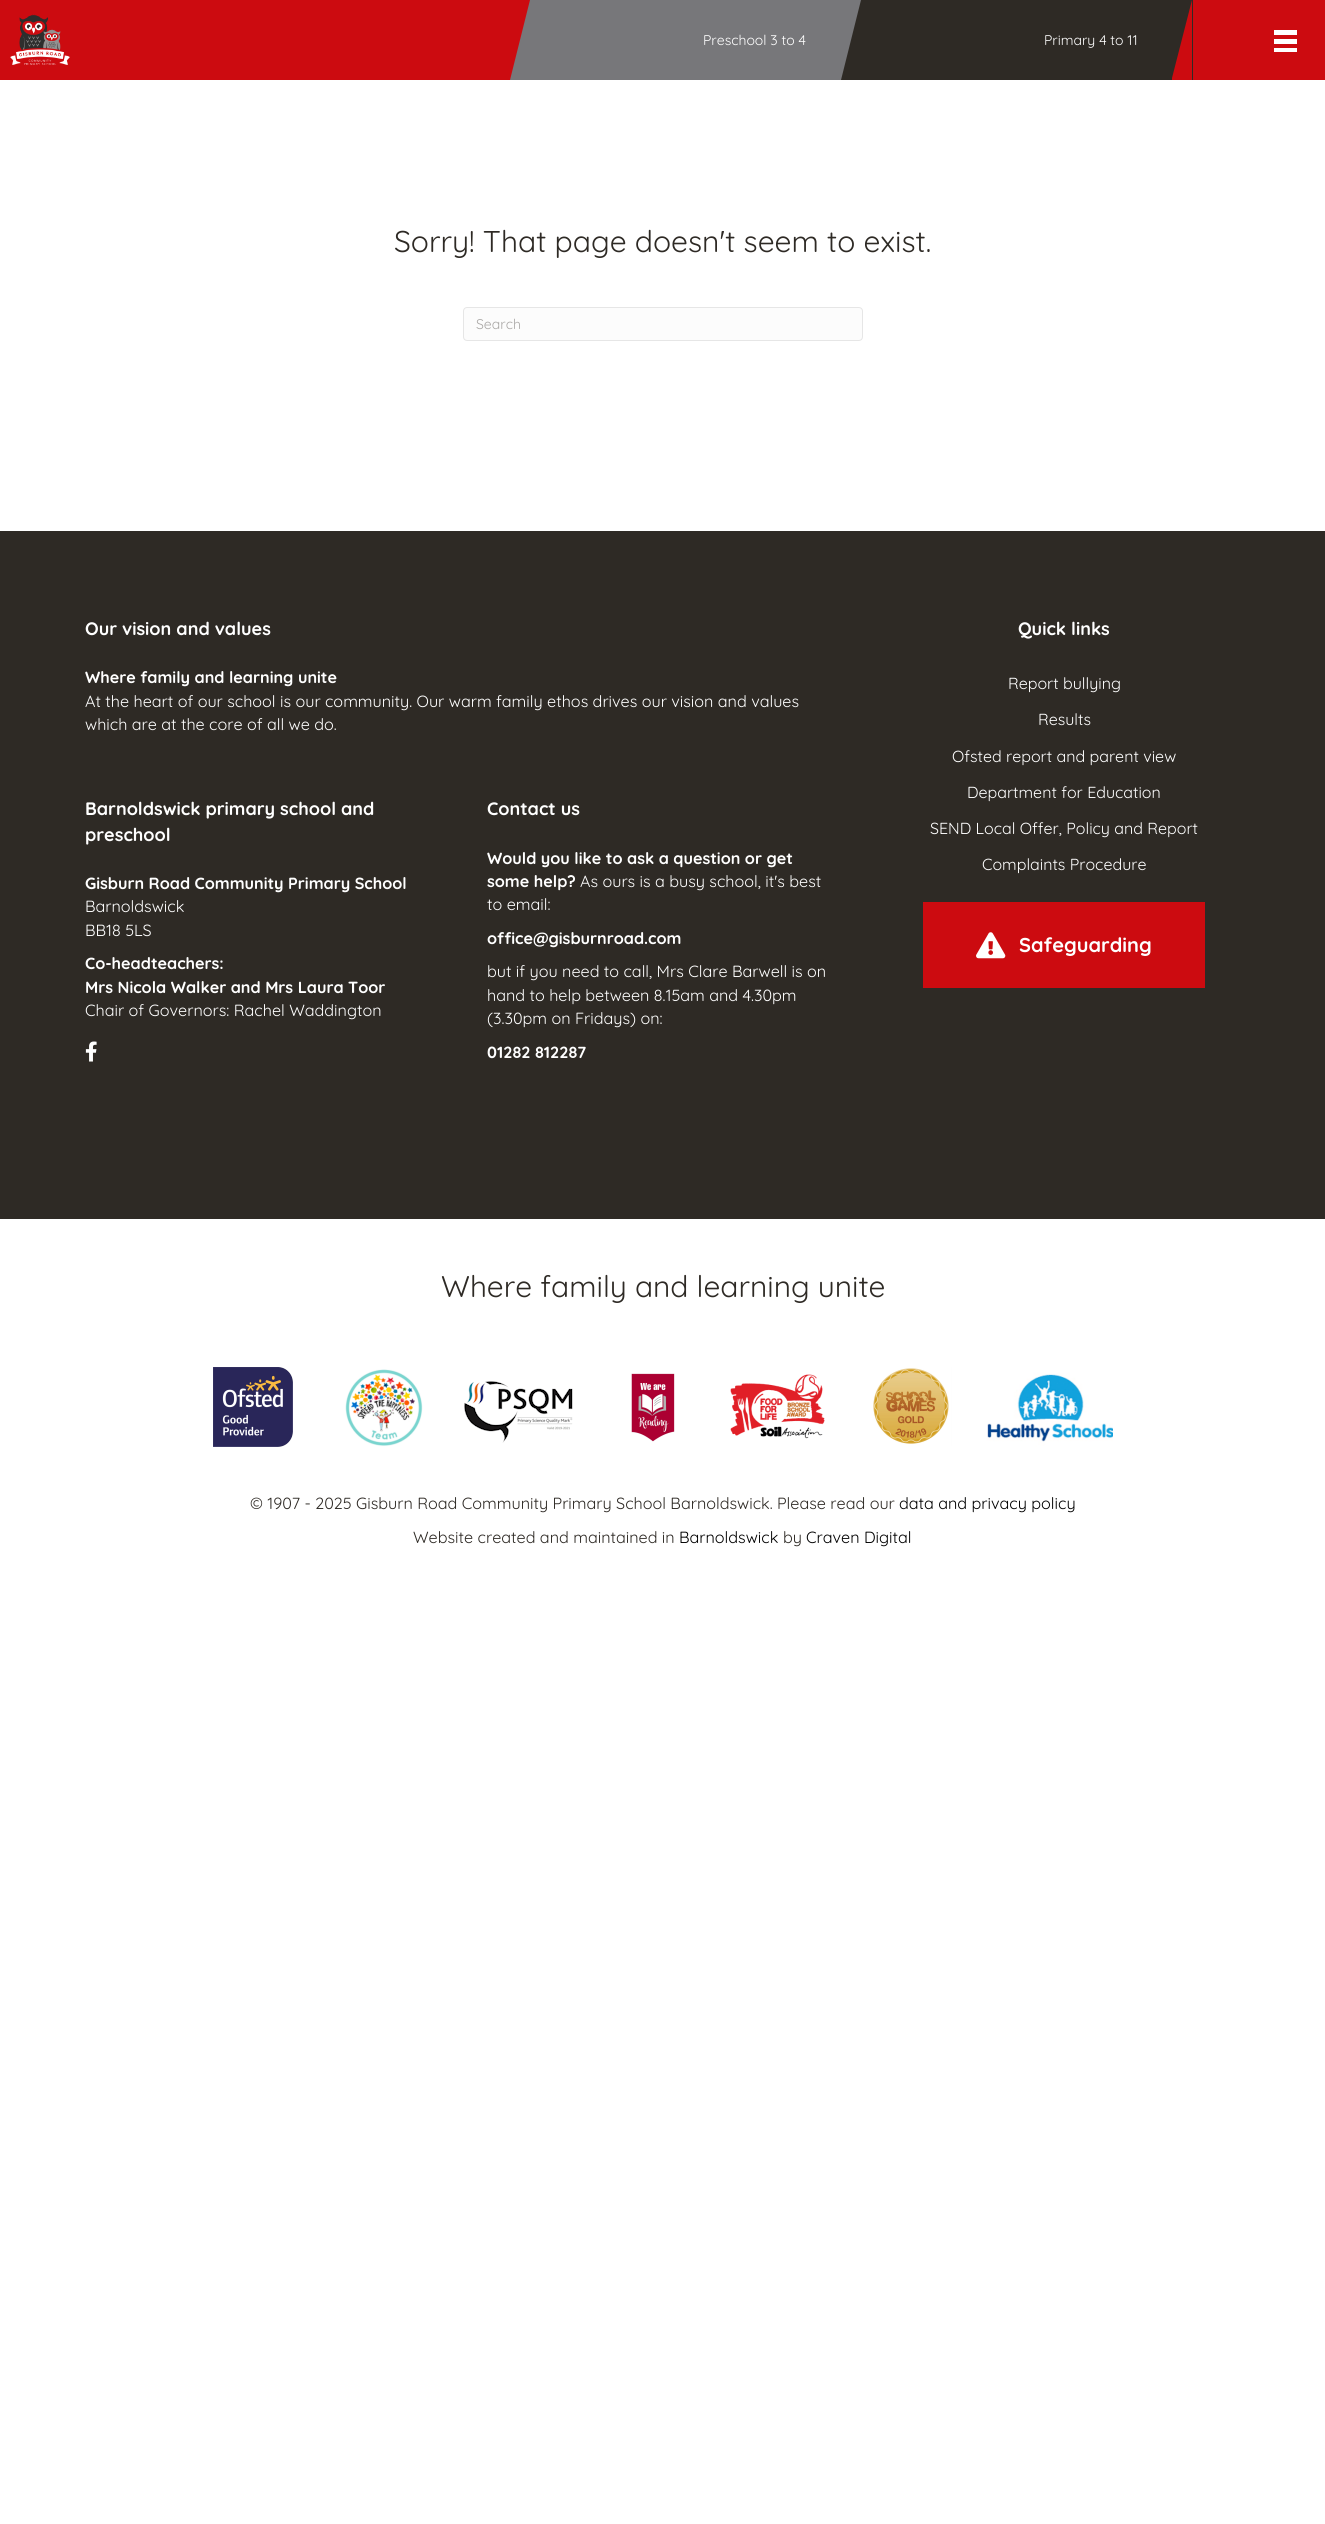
#include <cairo.h>
#include <math.h>
#include <stddef.h>

typedef struct { const char *family; double size; int italic, bold; unsigned color; } style_t;
static cairo_t *ctx;

static void ink(unsigned color) {
    cairo_set_source_rgb(ctx, (color >> 16) / 255.0, (color >> 8 & 255) / 255.0, (color & 255) / 255.0);
}

static void write(double x, double y, const char *s, const style_t *st) {
    cairo_select_font_face(ctx, st->family, st->italic ? CAIRO_FONT_SLANT_ITALIC : CAIRO_FONT_SLANT_NORMAL,
        st->bold ? CAIRO_FONT_WEIGHT_BOLD : CAIRO_FONT_WEIGHT_NORMAL);
    cairo_set_font_size(ctx, st->size);
    ink(st->color);
    cairo_move_to(ctx, x, y);
    cairo_show_text(ctx, s);
}

static void block(double x, double y, double w, double h, unsigned color) {
    ink(color);
    cairo_rectangle(ctx, x, y, w, h);
    cairo_fill(ctx);
}

static void round_path(double x, double y, double w, double h, double r) {
    cairo_new_sub_path(ctx);
    cairo_arc(ctx, x + w - r, y + h - r, r, 0, M_PI / 2);
    cairo_arc(ctx, x + r, y + h - r, r, M_PI / 2, M_PI);
    cairo_arc(ctx, x + r, y + r, r, M_PI, 1.5 * M_PI);
    cairo_arc(ctx, x + w - r, y + r, r, 1.5 * M_PI, 2 * M_PI);
    cairo_close_path(ctx);
}

static void paste(const char *path, double x, double y, double w, double h) {
    cairo_surface_t *image = cairo_image_surface_create_from_png(path);
    cairo_save(ctx);
    cairo_set_source_surface(ctx, image, x, y);
    cairo_rectangle(ctx, x, y, w, h);
    cairo_fill(ctx);
    cairo_restore(ctx);
    cairo_surface_destroy(image);
}

static const style_t s1 = {"Quicksand", 14, 0, 0, 0xffffff};
static const style_t s2 = {"Quicksand", 30, 0, 0, 0x2e2a25};
static const style_t s3 = {"Quicksand", 14, 0, 0, 0xaaa8a6};
static const style_t s4 = {"Quicksand", 18, 0, 1, 0xffffff};
static const style_t s5 = {"Quicksand", 16.15, 0, 1, 0xffffff};
static const style_t s6 = {"Quicksand", 16.15, 0, 0, 0xffffff};
static const style_t s7 = {"Quicksand", 16, 0, 0, 0xffffff};
static const style_t s8 = {"Quicksand", 20, 0, 1, 0xffffff};
static const style_t s9 = {"Quicksand", 29.9, 0, 0, 0x2e2a25};
static const style_t s10 = {"Quicksand", 16.15, 0, 0, 0x2e2a25};
static const style_t s11 = {"Quicksand", 16.15, 0, 0, 0x000000};

int main(void) {
    cairo_surface_t *surface = cairo_image_surface_create(CAIRO_FORMAT_RGB24, 1325, 2524);
    ctx = cairo_create(surface);
    cairo_font_options_t *options = cairo_font_options_create();
    cairo_font_options_set_hint_metrics(options, CAIRO_HINT_METRICS_OFF);
    cairo_font_options_set_hint_style(options, CAIRO_HINT_STYLE_NONE);
    cairo_set_font_options(ctx, options);
    cairo_set_miter_limit(ctx, 4);
    ink(0xffffff);
    cairo_paint(ctx);
    block(0, 0, 1325, 80, 0xcc0b10);
    paste("pic1.png", 10, 14, 60, 51);
    ink(0x77777a);
    cairo_new_path(ctx);
    cairo_move_to(ctx, 510, 80);
    cairo_line_to(ctx, 530, 80);
    cairo_line_to(ctx, 530, 0);
    cairo_close_path(ctx);
    cairo_fill(ctx);
    block(530, 0, 331, 80, 0x77777a);
    write(703, 45, "Preschool 3 to 4", &s1);
    ink(0x2e2a25);
    cairo_new_path(ctx);
    cairo_move_to(ctx, 841, 80);
    cairo_line_to(ctx, 861, 80);
    cairo_line_to(ctx, 861, 0);
    cairo_close_path(ctx);
    cairo_fill(ctx);
    block(861, 0, 332, 80, 0x2e2a25);
    write(1044, 45, "Primary 4 to 11", &s1);
    ink(0xcc0b10);
    cairo_new_path(ctx);
    cairo_move_to(ctx, 1172, 78);
    cairo_line_to(ctx, 1172, 80);
    cairo_line_to(ctx, 1192, 80);
    cairo_line_to(ctx, 1192, 0);
    cairo_close_path(ctx);
    cairo_fill(ctx);
    block(1274, 30, 23, 5, 0xffffff);
    block(1274, 39, 23, 5, 0xffffff);
    block(1274, 48, 23, 4, 0xffffff);
    write(394, 252, "Sorry! That page doesn't seem to exist.", &s2);
    ink(0xfcfcfc);
    round_path(463.5, 307.5, 399, 33, 3.5);
    cairo_fill_preserve(ctx);
    ink(0xe6e6e6);
    cairo_set_line_width(ctx, 1);
    cairo_stroke(ctx);
    write(476, 329, "Search", &s3);
    block(0, 531, 1325, 688, 0x2e2a25);
    write(85, 635, "Our vision and values", &s4);
    write(85, 683, "Where family and learning unite", &s5);
    write(85, 707, "At the heart of our school is our community. Our warm family ethos drives our vision and values", &s6);
    write(85, 730, "which are at the core of all we do.", &s6);
    write(85, 815, "Barnoldswick primary school and", &s4);
    write(85, 841, "preschool", &s4);
    write(85, 889, "Gisburn Road Community Primary School", &s5);
    write(85, 912, "Barnoldswick", &s6);
    write(85, 936, "BB18 5LS", &s6);
    write(85, 969, "Co-headteachers:", &s5);
    write(85, 993, "Mrs Nicola Walker and Mrs Laura Toor", &s5);
    write(85, 1016, "Chair of Governors: Rachel Waddington", &s6);
    paste("pic2.png", 85, 1041, 12, 21);
    write(487, 815, "Contact us", &s4);
    write(487, 864, "Would you like to ask a question or get", &s5);
    write(487, 887, "some help?", &s5);
    write(580, 887, "As ours is a busy school, it's best", &s6);
    write(487, 910, "to email:", &s6);
    write(487, 944, "office@gisburnroad.com", &s5);
    write(487, 977, "but if you need to call, Mrs Clare Barwell is on", &s6);
    write(487, 1001, "hand to help between 8.15am and 4.30pm", &s6);
    write(487, 1024, "(3.30pm on Fridays) on:", &s6);
    write(487, 1058, "01282 812287", &s5);
    write(1018, 635, "Quick links", &s4);
    write(1008, 689, "Report bullying", &s7);
    write(1038, 725, "Results", &s7);
    write(952, 762, "Ofsted report and parent view", &s7);
    write(967, 798, "Department for Education", &s7);
    write(930, 834, "SEND Local Offer, Policy and Report", &s7);
    write(982, 870, "Complaints Procedure", &s7);
    block(923, 902, 282, 86, 0xcc0b10);
    paste("pic3.png", 976, 932, 30, 27);
    write(1019, 952, "Safeguarding", &s8);
    write(441, 1297, "Where family and learning unite", &s9);
    paste("pic4.png", 213, 1367, 900, 80);
    write(250, 1509, "© 1907 - 2025 Gisburn Road Community Primary School Barnoldswick. Please read our", &s10);
    write(899, 1509, "data and privacy policy", &s11);
    write(413, 1543, "Website created and maintained in", &s10);
    write(679, 1543, "Barnoldswick", &s11);
    write(783, 1543, "by", &s10);
    write(806, 1543, "Craven Digital", &s11);
    cairo_surface_write_to_png(surface, "screenshot.png");
    cairo_font_options_destroy(options);
    cairo_destroy(ctx);
    cairo_surface_destroy(surface);
    return 0;
}
